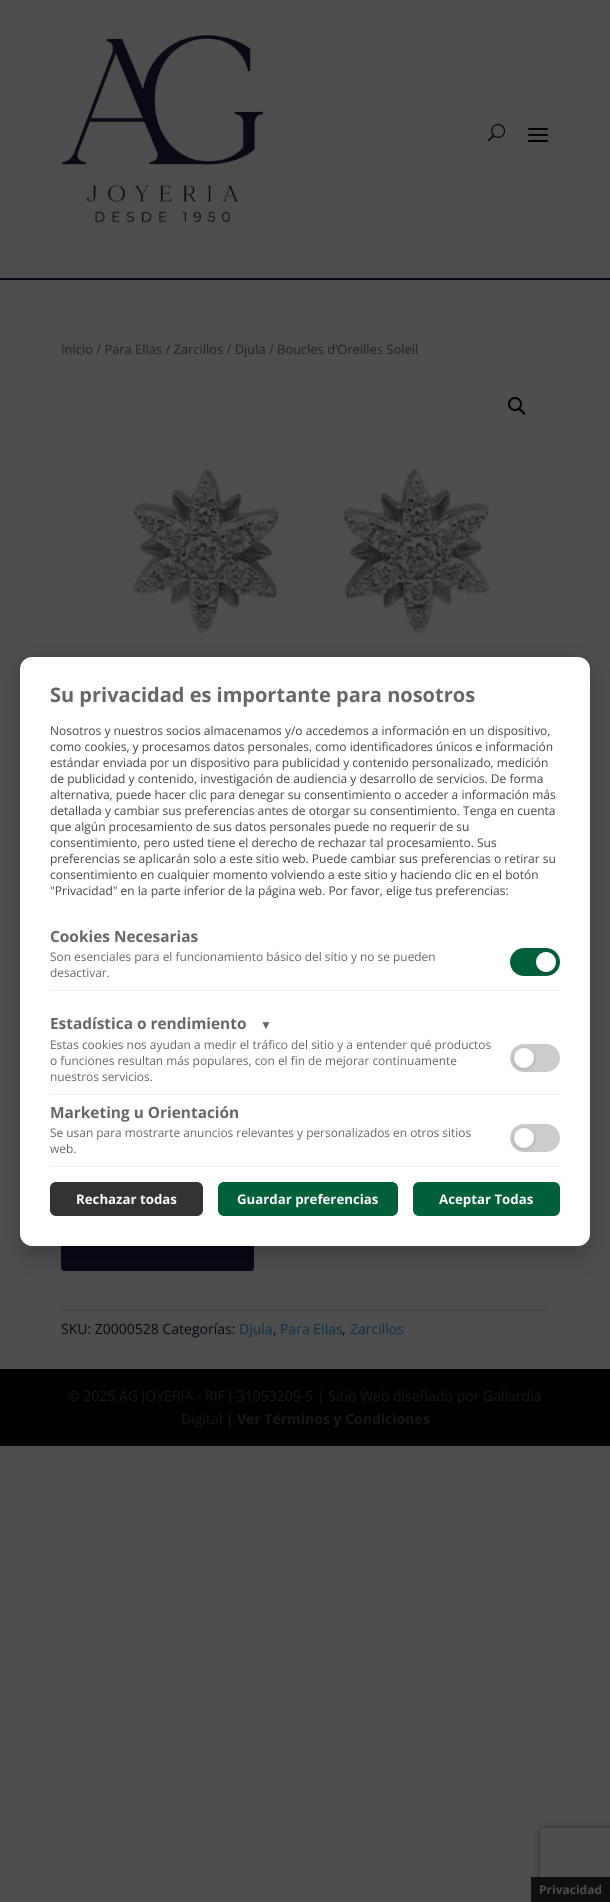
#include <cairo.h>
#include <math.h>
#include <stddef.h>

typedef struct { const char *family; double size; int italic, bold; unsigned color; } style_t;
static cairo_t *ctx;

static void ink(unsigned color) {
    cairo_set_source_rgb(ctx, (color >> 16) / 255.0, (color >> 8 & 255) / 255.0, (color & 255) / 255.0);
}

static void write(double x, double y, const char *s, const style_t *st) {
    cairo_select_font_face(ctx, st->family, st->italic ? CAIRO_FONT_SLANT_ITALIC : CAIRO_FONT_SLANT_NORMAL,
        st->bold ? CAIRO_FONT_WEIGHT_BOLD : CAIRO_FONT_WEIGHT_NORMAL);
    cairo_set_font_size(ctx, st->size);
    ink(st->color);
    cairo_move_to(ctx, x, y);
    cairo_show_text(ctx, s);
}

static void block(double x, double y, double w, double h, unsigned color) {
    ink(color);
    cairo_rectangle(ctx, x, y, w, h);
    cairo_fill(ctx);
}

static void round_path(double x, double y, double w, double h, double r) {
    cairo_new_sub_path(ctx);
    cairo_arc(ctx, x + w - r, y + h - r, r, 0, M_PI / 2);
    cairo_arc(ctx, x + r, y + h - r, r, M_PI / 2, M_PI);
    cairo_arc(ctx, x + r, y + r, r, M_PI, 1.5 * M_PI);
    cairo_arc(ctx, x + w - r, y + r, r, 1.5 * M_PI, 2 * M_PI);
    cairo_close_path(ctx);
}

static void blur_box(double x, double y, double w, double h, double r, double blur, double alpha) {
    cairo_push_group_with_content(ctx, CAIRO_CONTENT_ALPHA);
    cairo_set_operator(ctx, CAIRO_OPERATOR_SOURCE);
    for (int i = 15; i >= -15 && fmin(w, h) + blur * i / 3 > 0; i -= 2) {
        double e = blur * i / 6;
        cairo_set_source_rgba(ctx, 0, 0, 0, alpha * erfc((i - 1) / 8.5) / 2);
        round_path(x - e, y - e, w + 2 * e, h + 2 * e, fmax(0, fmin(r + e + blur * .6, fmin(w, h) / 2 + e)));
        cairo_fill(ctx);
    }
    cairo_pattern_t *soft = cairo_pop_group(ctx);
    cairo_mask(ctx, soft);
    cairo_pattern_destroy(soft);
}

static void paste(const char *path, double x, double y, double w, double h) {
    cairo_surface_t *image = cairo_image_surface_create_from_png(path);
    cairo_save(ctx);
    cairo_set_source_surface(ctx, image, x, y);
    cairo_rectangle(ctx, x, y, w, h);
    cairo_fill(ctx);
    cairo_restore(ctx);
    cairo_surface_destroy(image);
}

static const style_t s1 = {"Open Sans", 12.9, 0, 0, 0x232323};
static const style_t s2 = {"Open Sans", 14, 0, 0, 0x0a0715};
static const style_t s3 = {"Open Sans", 14, 0, 0, 0x0e3149};
static const style_t s4 = {"Open Sans", 14, 0, 0, 0x171717};
static const style_t s5 = {"Open Sans", 14, 0, 1, 0x171717};
static const style_t s6 = {"Open Sans", 20, 0, 1, 0x666666};
static const style_t s7 = {"Open Sans", 12, 0, 0, 0x444444};
static const style_t s8 = {"Open Sans", 15.4, 0, 1, 0x666666};
static const style_t s9 = {"Open Sans", 11.9, 0, 0, 0x666666};
static const style_t s10 = {"Liberation Sans", 12, 0, 1, 0x666666};
static const style_t s11 = {"Open Sans", 13.25, 0, 1, 0xffffff};
static const style_t s12 = {"Open Sans", 12, 0, 1, 0x4d4d4d};

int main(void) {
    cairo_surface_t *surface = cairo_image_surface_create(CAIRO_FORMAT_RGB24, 610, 1902);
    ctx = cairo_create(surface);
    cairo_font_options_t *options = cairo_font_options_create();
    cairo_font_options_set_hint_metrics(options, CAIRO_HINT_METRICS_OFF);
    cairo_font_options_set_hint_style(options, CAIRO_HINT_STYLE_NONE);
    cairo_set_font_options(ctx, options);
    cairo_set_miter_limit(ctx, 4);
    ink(0x4d4d4d);
    cairo_paint(ctx);
    block(0, 278, 610, 2, 0x0a0715);
    paste("pic1.png", 62, 35, 201, 188);
    paste("pic2.png", 488, 124, 17, 18);
    paste("pic3.png", 528, 127, 20, 15);
    write(61, 354, "Inicio / Para Ellas / Zarcillos / Djula / Boucles d’Oreilles Soleil", &s1);
    cairo_new_path(ctx);
    cairo_arc(ctx, 515, 404, 6, 0, 2 * M_PI);
    ink(0x000000);
    cairo_stroke(ctx);
    cairo_new_path(ctx);
    cairo_move_to(ctx, 519, 408.5);
    cairo_curve_to(ctx, 520.5, 407.5, 522, 410, 522.5, 410.5);
    cairo_curve_to(ctx, 523.5, 411.5, 526, 413, 525, 414.5);
    cairo_curve_to(ctx, 523.5, 415.5, 522, 413, 521.5, 412);
    cairo_curve_to(ctx, 520.5, 411.5, 518, 410, 519, 408.5);
    cairo_close_path(ctx);
    cairo_fill(ctx);
    paste("pic4.png", 132, 469, 358, 165);
    ink(0x0a0715);
    round_path(62, 1222, 191, 48, 2);
    cairo_fill_preserve(ctx);
    cairo_stroke(ctx);
    block(61, 1310, 488, 1, 0x414141);
    write(61, 1334, "SKU: Z0000528 Categorías:", &s2);
    write(239, 1334, "Djula", &s3);
    write(273, 1334, ",", &s2);
    write(280, 1334, "Para Ellas", &s3);
    write(342, 1334, ",", &s2);
    write(350, 1334, "Zarcillos", &s3);
    block(0, 1369, 610, 77, 0x000000);
    write(68, 1401, "© 2025 AG JOYERIA - RIF J-31053209-5 | Sitio Web diseñado por Gallardía", &s4);
    write(181, 1424, "Digital |", &s4);
    write(237, 1424, "Ver Términos y Condiciones", &s5);
    ink(0x000000);
    blur_box(20, 667, 570, 589, 12, 12.5, 0.2);
    ink(0xffffff);
    round_path(20, 657, 570, 589, 12);
    cairo_fill(ctx);
    write(50, 702, "Su privacidad es importante para nosotros", &s6);
    write(50, 735, "Nosotros y nuestros socios almacenamos y/o accedemos a información en un dispositivo,", &s7);
    write(50, 751, "como cookies, y procesamos datos personales, como identificadores únicos e información", &s7);
    write(50, 767, "estándar enviada por un dispositivo para publicidad y contenido personalizado, medición", &s7);
    write(50, 783, "de publicidad y contenido, investigación de audiencia y desarrollo de servicios. De forma", &s7);
    write(50, 799, "alternativa, puede hacer clic para denegar su consentimiento o acceder a información más", &s7);
    write(50, 815, "detallada y cambiar sus preferencias antes de otorgar su consentimiento. Tenga en cuenta", &s7);
    write(50, 831, "que algún procesamiento de sus datos personales puede no requerir de su", &s7);
    write(50, 847, "consentimiento, pero usted tiene el derecho de rechazar tal procesamiento. Sus", &s7);
    write(50, 863, "preferencias se aplicarán solo a este sitio web. Puede cambiar sus preferencias o retirar su", &s7);
    write(50, 879, "consentimiento en cualquier momento volviendo a este sitio y haciendo clic en el botón", &s7);
    write(50, 895, "\"Privacidad\" en la parte inferior de la página web. Por favor, elige tus preferencias:", &s7);
    block(50, 990, 510, 1, 0xeeeeee);
    write(50, 942, "Cookies Necesarias", &s8);
    write(50, 961, "Son esenciales para el funcionamiento básico del sitio y no se pueden", &s9);
    write(50, 977, "desactivar.", &s9);
    ink(0x006039);
    round_path(510, 948, 50, 28, 14);
    cairo_fill(ctx);
    ink(0x000000);
    blur_box(536, 953, 20, 20, 10, 1.5, 0.2);
    ink(0xffffff);
    cairo_arc(ctx, 546, 962, 10, 0, 2 * M_PI);
    cairo_fill(ctx);
    write(50, 1029, "Estadística o rendimiento", &s8);
    write(260, 1029, "▼", &s10);
    write(50, 1049, "Estas cookies nos ayudan a medir el tráfico del sitio y a entender qué productos", &s9);
    write(50, 1065, "o funciones resultan más populares, con el fin de mejorar continuamente", &s9);
    write(50, 1081, "nuestros servicios.", &s9);
    ink(0xcccccc);
    round_path(510, 1044, 50, 28, 14);
    cairo_fill(ctx);
    ink(0x000000);
    blur_box(514, 1049, 20, 20, 10, 1.5, 0.2);
    ink(0xffffff);
    cairo_arc(ctx, 524, 1058, 10, 0, 2 * M_PI);
    cairo_fill(ctx);
    block(50, 1094, 510, 1, 0xeeeeee);
    block(50, 1166, 510, 1, 0xeeeeee);
    write(50, 1118, "Marketing u Orientación", &s8);
    write(50, 1137, "Se usan para mostrarte anuncios relevantes y personalizados en otros sitios", &s9);
    write(50, 1153, "web.", &s9);
    ink(0xcccccc);
    round_path(510, 1124, 50, 28, 14);
    cairo_fill(ctx);
    ink(0x000000);
    blur_box(514, 1129, 20, 20, 10, 1.5, 0.2);
    ink(0xffffff);
    cairo_arc(ctx, 524, 1138, 10, 0, 2 * M_PI);
    cairo_fill(ctx);
    ink(0x333333);
    round_path(50, 1182, 153, 34, 6);
    cairo_fill(ctx);
    write(76, 1204, "Rechazar todas", &s11);
    ink(0x006039);
    round_path(218, 1182, 180, 34, 6);
    cairo_fill(ctx);
    write(237, 1204, "Guardar preferencias", &s11);
    ink(0x006039);
    round_path(413, 1182, 147, 34, 6);
    cairo_fill(ctx);
    write(439, 1204, "Aceptar Todas", &s11);
    cairo_save(ctx);
    cairo_set_fill_rule(ctx, CAIRO_FILL_RULE_EVEN_ODD);
    cairo_new_path(ctx);
    cairo_move_to(ctx, 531, 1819);
    cairo_line_to(ctx, 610, 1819);
    cairo_line_to(ctx, 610, 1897);
    cairo_line_to(ctx, 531, 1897);
    cairo_close_path(ctx);
    cairo_move_to(ctx, 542, 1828);
    cairo_line_to(ctx, 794, 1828);
    cairo_curve_to(ctx, 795, 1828, 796, 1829, 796, 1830);
    cairo_line_to(ctx, 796, 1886);
    cairo_curve_to(ctx, 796, 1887, 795, 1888, 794, 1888);
    cairo_line_to(ctx, 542, 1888);
    cairo_curve_to(ctx, 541, 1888, 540, 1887, 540, 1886);
    cairo_line_to(ctx, 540, 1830);
    cairo_curve_to(ctx, 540, 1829, 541, 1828, 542, 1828);
    cairo_close_path(ctx);
    cairo_clip(ctx);
    ink(0x262626);
    blur_box(540, 1828, 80, 60, 2, 2.5, 1);
    cairo_restore(ctx);
    block(531, 1877, 79, 25, 0x0f0f0f);
    write(539, 1894, "Privacidad", &s12);
    cairo_surface_write_to_png(surface, "screenshot.png");
    cairo_font_options_destroy(options);
    cairo_destroy(ctx);
    cairo_surface_destroy(surface);
    return 0;
}
